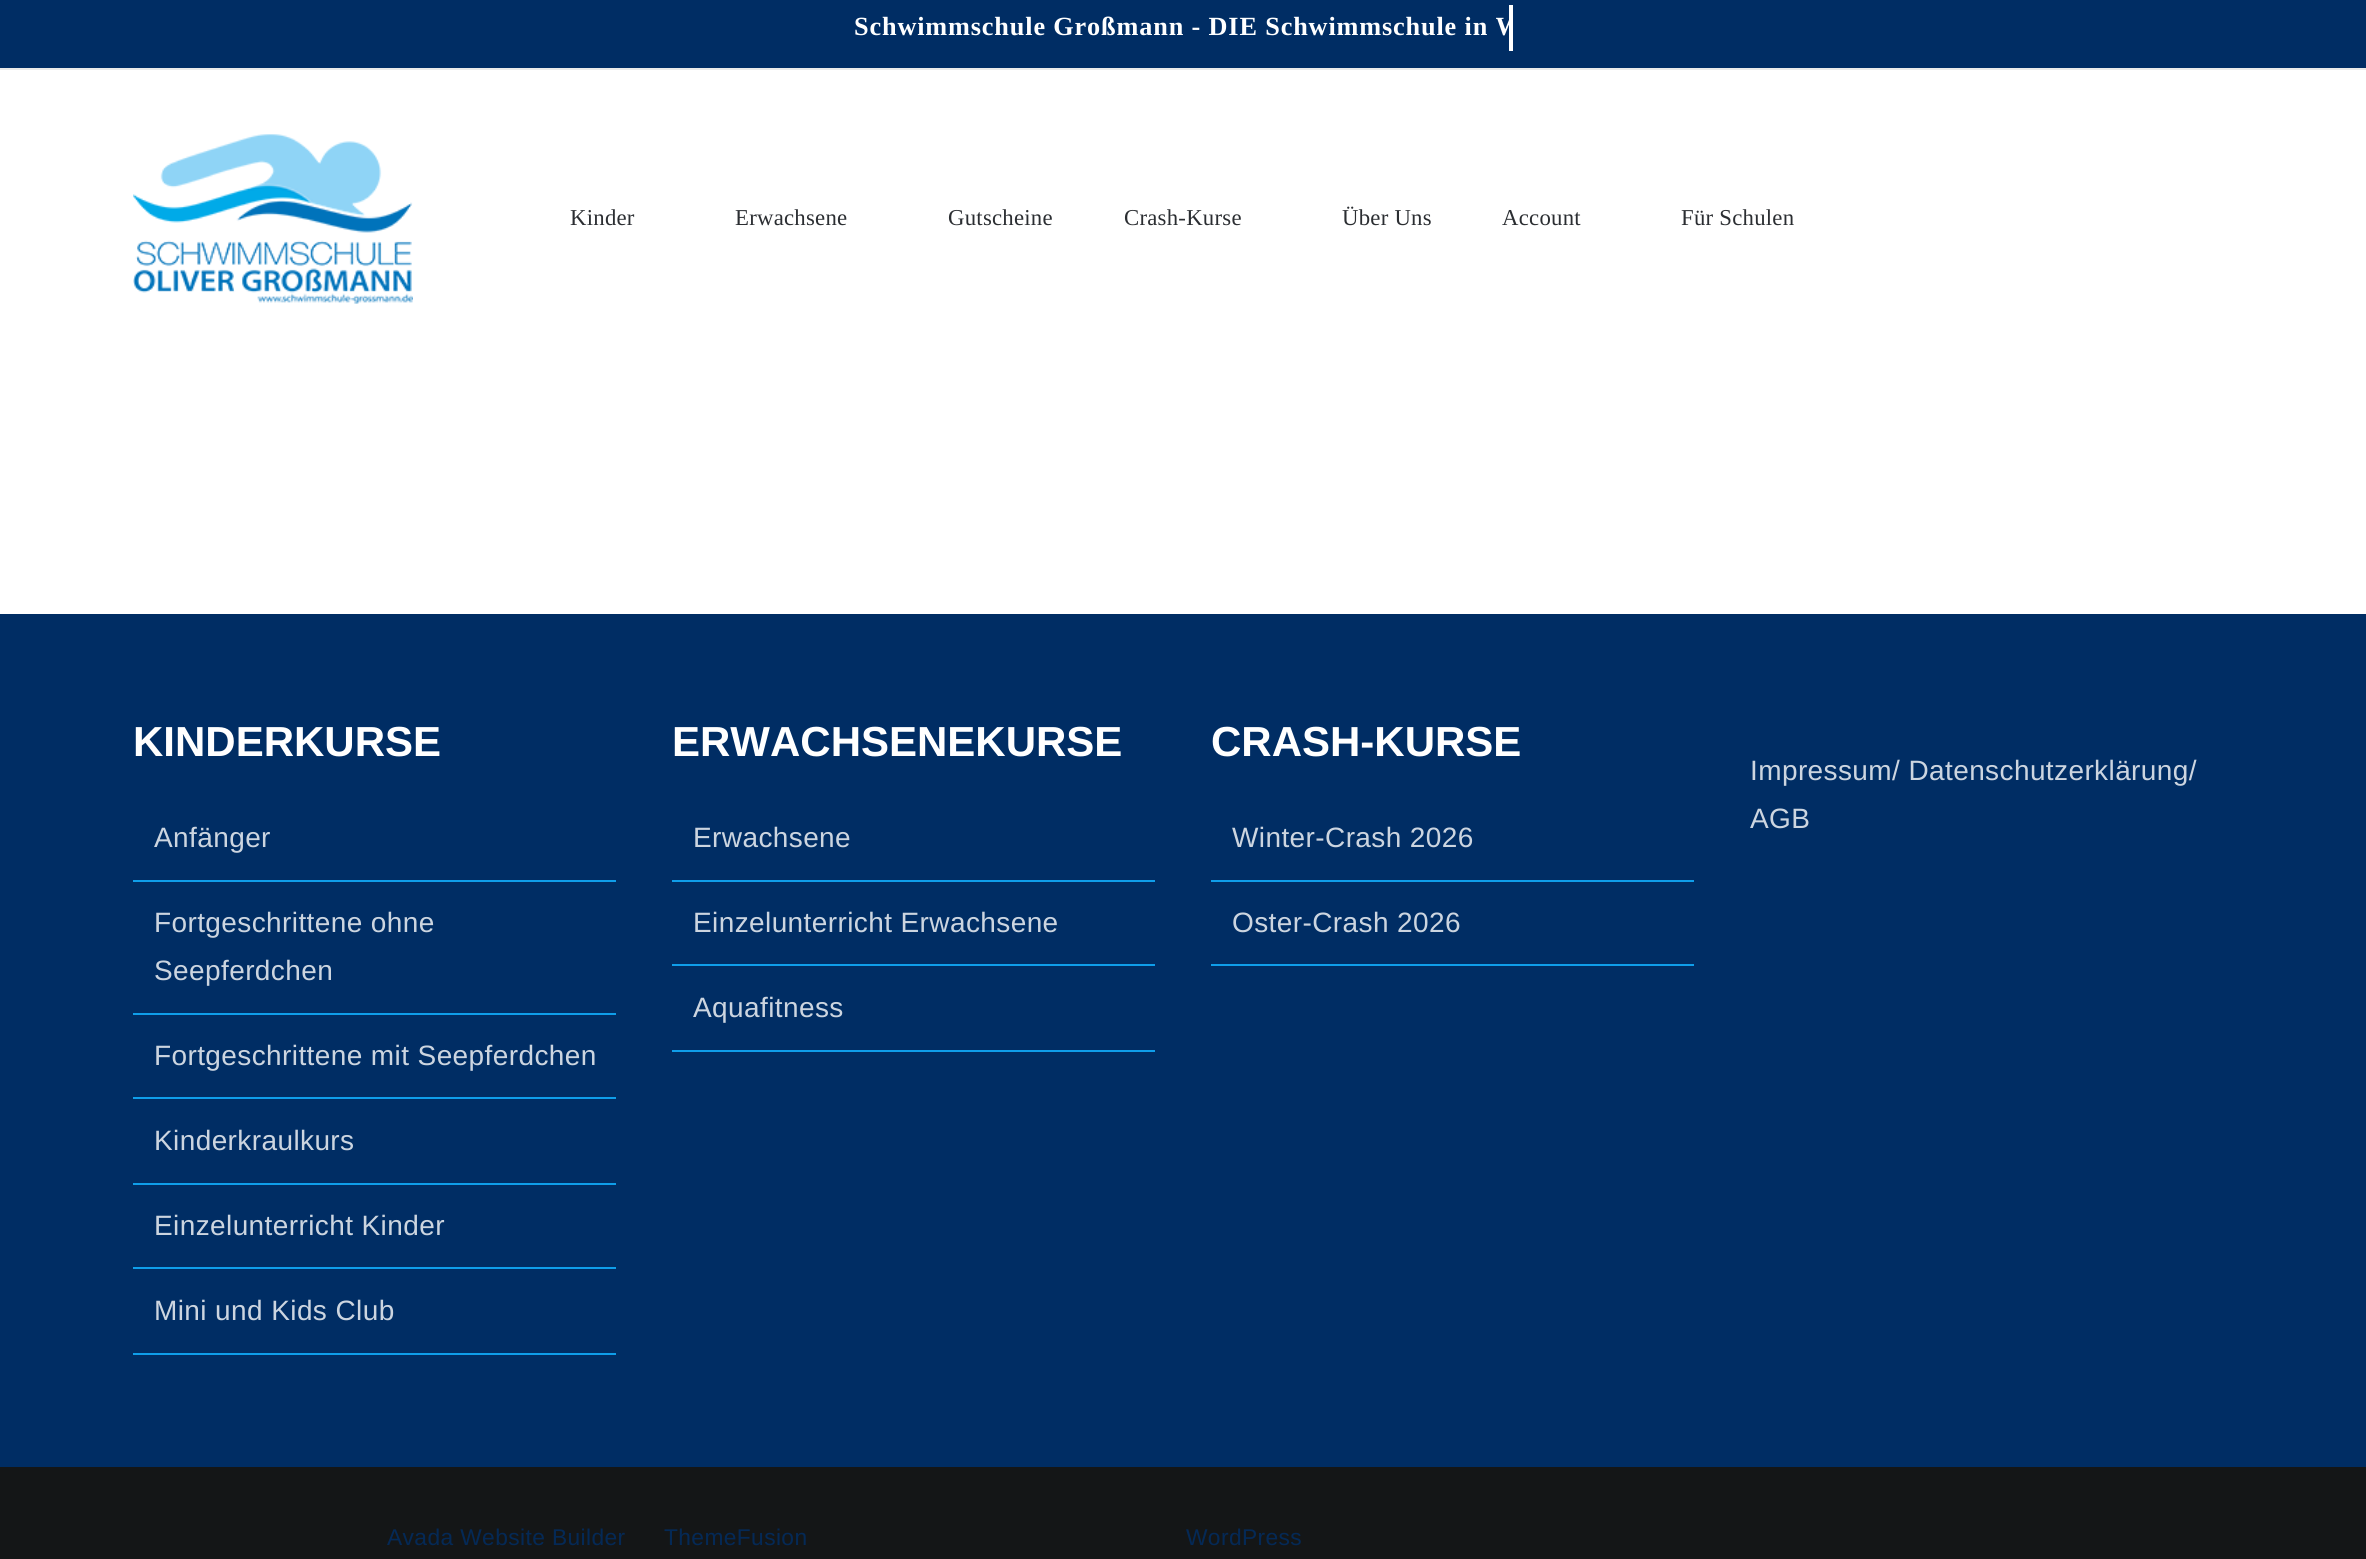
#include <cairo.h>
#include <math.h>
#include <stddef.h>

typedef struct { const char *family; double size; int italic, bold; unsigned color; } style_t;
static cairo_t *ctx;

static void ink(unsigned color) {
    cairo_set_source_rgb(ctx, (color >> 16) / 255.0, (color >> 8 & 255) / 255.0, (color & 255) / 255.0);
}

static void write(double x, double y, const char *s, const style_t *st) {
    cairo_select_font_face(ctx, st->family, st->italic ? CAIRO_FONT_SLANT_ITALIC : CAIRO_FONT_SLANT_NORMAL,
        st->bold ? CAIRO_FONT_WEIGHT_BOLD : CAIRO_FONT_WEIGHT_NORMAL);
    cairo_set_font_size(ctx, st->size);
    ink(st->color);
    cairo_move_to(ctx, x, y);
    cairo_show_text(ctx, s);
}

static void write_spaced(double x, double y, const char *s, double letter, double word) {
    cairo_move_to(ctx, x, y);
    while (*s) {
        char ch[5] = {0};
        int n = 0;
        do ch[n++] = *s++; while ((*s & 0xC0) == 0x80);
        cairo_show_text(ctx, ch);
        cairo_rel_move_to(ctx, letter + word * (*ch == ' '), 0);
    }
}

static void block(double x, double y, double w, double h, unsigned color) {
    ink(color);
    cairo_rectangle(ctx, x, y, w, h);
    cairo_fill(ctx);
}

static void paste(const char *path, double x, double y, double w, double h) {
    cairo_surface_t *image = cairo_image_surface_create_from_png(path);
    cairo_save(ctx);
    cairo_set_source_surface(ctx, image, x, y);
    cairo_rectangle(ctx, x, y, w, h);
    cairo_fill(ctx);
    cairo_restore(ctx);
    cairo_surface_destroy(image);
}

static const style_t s1 = {"Liberation Sans", 42, 0, 1, 0xffffff};

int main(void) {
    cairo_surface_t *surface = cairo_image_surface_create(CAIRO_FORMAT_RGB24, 2366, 1559);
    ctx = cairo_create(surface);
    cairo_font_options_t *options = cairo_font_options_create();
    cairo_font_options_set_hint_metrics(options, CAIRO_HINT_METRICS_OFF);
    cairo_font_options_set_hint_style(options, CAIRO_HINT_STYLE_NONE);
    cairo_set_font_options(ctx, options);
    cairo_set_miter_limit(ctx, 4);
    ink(0xffffff);
    cairo_paint(ctx);
    block(0, 0, 2366, 68, 0x002d64);
    block(1509, 5, 4, 46, 0xffffff);
    cairo_save(ctx);
    cairo_rectangle(ctx, 854, 5, 658, 46);
    cairo_clip(ctx);
    cairo_select_font_face(ctx, "Liberation Serif", CAIRO_FONT_SLANT_NORMAL, CAIRO_FONT_WEIGHT_BOLD);
    cairo_set_font_size(ctx, 26.25);
    write_spaced(854, 35, "Schwimmschule Großmann - DIE Schwimmschule in W", 0.85, 0);
    cairo_restore(ctx);
    block(0, 68, 2366, 2, 0xeaeaea);
    paste("pic1.png", 133, 134, 280, 170);
    cairo_select_font_face(ctx, "Liberation Serif", CAIRO_FONT_SLANT_NORMAL, CAIRO_FONT_WEIGHT_NORMAL);
    cairo_set_font_size(ctx, 22.75);
    ink(0x2b2e32);
    write_spaced(570, 225, "Kinder", 0.25, 0);
    write_spaced(735, 225, "Erwachsene", 0.25, 0);
    write_spaced(948, 225, "Gutscheine", 0.25, 0);
    write_spaced(1124, 225, "Crash-Kurse", 0.25, 0);
    write_spaced(1342, 225, "Über Uns", 0.25, 0);
    write_spaced(1502, 225, "Account", 0.25, 0);
    write_spaced(1681, 225, "Für Schulen", 0.25, 0);
    block(0, 614, 2366, 853, 0x002d64);
    write(133, 756, "KINDERKURSE", &s1);
    block(133, 880, 483, 2, 0x0f9eea);
    cairo_select_font_face(ctx, "Liberation Sans", CAIRO_FONT_SLANT_NORMAL, CAIRO_FONT_WEIGHT_NORMAL);
    cairo_set_font_size(ctx, 28);
    ink(0xccd5e0);
    write_spaced(154, 847, "Anfänger", 0.4, 0);
    block(133, 1013, 483, 2, 0x0f9eea);
    ink(0xccd5e0);
    write_spaced(154, 932, "Fortgeschrittene ohne", 0.4, 0);
    write_spaced(154, 980, "Seepferdchen", 0.4, 0);
    block(133, 1097, 483, 2, 0x0f9eea);
    ink(0xccd5e0);
    write_spaced(154, 1065, "Fortgeschrittene mit Seepferdchen", 0.4, 0);
    block(133, 1183, 483, 2, 0x0f9eea);
    ink(0xccd5e0);
    write_spaced(154, 1150, "Kinderkraulkurs", 0.4, 0);
    block(133, 1267, 483, 2, 0x0f9eea);
    ink(0xccd5e0);
    write_spaced(154, 1235, "Einzelunterricht Kinder", 0.4, 0);
    block(133, 1353, 483, 2, 0x0f9eea);
    ink(0xccd5e0);
    write_spaced(154, 1320, "Mini und Kids Club", 0.4, 0);
    write(672, 756, "ERWACHSENEKURSE", &s1);
    block(672, 880, 483, 2, 0x0f9eea);
    cairo_select_font_face(ctx, "Liberation Sans", CAIRO_FONT_SLANT_NORMAL, CAIRO_FONT_WEIGHT_NORMAL);
    cairo_set_font_size(ctx, 28);
    ink(0xccd5e0);
    write_spaced(693, 847, "Erwachsene", 0.4, 0);
    block(672, 964, 483, 2, 0x0f9eea);
    ink(0xccd5e0);
    write_spaced(693, 932, "Einzelunterricht Erwachsene", 0.4, 0);
    block(672, 1050, 483, 2, 0x0f9eea);
    ink(0xccd5e0);
    write_spaced(693, 1017, "Aquafitness", 0.4, 0);
    write(1211, 756, "CRASH-KURSE", &s1);
    block(1211, 880, 483, 2, 0x0f9eea);
    cairo_select_font_face(ctx, "Liberation Sans", CAIRO_FONT_SLANT_NORMAL, CAIRO_FONT_WEIGHT_NORMAL);
    cairo_set_font_size(ctx, 28);
    ink(0xccd5e0);
    write_spaced(1232, 847, "Winter-Crash 2026", 0.4, 0);
    block(1211, 964, 483, 2, 0x0f9eea);
    ink(0xccd5e0);
    write_spaced(1232, 932, "Oster-Crash 2026", 0.4, 0);
    write_spaced(1750, 780, "Impressum/ Datenschutzerklärung/", 0.4, 0);
    write_spaced(1750, 828, "AGB", 0.4, 0);
    block(0, 1467, 2366, 92, 0x141617);
    cairo_set_font_size(ctx, 22.75);
    ink(0x042956);
    write_spaced(387, 1545, "Avada Website Builder", 0.4, 0);
    write_spaced(664, 1545, "ThemeFusion", 0.4, 0);
    write_spaced(1186, 1545, "WordPress", 0.4, 0);
    cairo_surface_write_to_png(surface, "screenshot.png");
    cairo_font_options_destroy(options);
    cairo_destroy(ctx);
    cairo_surface_destroy(surface);
    return 0;
}
